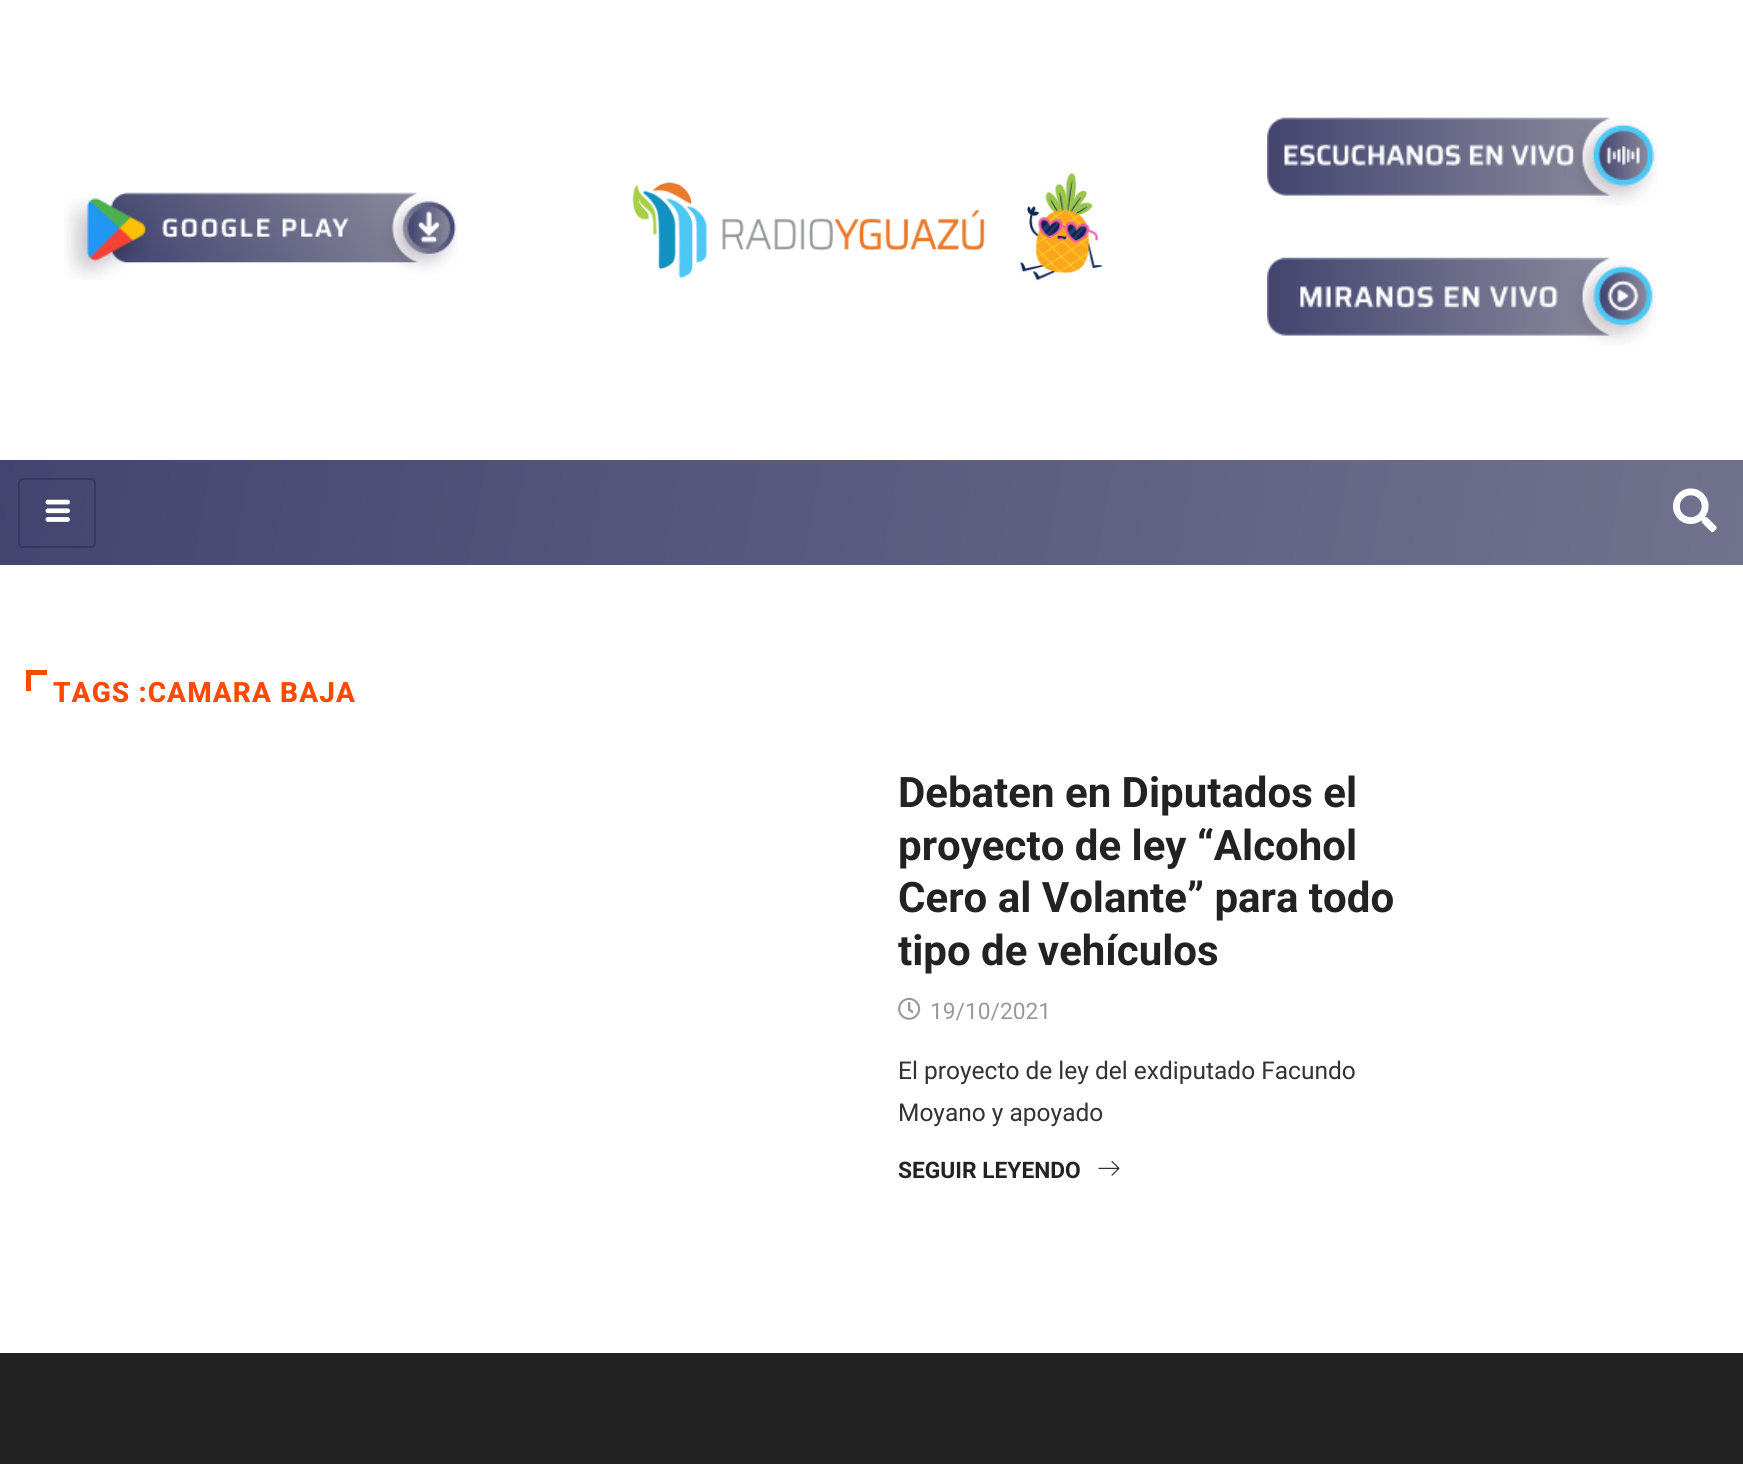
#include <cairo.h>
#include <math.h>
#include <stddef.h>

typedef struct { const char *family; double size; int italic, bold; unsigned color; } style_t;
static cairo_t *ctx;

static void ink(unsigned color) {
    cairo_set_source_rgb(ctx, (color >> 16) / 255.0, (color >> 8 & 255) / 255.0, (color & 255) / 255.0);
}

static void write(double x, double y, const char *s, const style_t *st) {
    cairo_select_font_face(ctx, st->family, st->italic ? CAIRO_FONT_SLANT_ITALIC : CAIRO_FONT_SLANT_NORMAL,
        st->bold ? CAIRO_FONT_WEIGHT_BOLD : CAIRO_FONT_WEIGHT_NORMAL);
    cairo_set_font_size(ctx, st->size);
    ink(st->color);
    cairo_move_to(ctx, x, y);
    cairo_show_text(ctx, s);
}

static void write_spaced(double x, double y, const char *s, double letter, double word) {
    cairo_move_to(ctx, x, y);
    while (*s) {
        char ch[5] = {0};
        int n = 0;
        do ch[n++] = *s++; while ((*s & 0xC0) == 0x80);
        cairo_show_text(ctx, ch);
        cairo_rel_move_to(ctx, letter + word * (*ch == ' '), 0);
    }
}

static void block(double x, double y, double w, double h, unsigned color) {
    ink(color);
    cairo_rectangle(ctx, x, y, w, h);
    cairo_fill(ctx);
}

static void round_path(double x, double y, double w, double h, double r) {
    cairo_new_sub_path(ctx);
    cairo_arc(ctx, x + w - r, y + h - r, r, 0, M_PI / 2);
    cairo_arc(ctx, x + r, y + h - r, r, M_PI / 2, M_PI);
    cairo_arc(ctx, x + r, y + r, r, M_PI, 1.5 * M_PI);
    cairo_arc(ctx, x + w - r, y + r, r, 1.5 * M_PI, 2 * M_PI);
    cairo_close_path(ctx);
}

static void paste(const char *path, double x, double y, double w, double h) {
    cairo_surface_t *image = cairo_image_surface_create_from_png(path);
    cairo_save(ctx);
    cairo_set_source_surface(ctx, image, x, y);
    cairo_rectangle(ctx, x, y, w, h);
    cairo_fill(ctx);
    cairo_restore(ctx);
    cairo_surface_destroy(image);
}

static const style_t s1 = {"Roboto", 42, 0, 1, 0x222222};
static const style_t s2 = {"Roboto", 22.75, 0, 0, 0x999999};
static const style_t s3 = {"Roboto", 24.5, 0, 0, 0x333333};
static const style_t s4 = {"Roboto", 22.75, 0, 1, 0x222222};

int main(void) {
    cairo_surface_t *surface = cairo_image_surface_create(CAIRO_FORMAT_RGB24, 1743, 1464);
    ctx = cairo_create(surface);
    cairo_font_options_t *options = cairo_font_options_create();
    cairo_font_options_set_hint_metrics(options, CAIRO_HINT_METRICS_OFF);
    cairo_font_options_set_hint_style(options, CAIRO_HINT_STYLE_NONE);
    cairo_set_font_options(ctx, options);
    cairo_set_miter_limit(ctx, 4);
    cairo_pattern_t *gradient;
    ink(0xffffff);
    cairo_paint(ctx);
    paste("pic1.png", 64, 192, 394, 88);
    paste("pic2.png", 632, 170, 471, 111);
    paste("pic3.png", 1267, 117, 391, 89);
    paste("pic4.png", 1267, 257, 389, 88);
    gradient = cairo_pattern_create_linear(17, 362, 1726, 663);
    cairo_pattern_add_color_stop_rgba(gradient, 0, 0.263, 0.271, 0.439, 1);
    cairo_pattern_add_color_stop_rgba(gradient, 1, 0.443, 0.447, 0.553, 1);
    cairo_set_source(ctx, gradient);
    cairo_pattern_destroy(gradient);
    cairo_rectangle(ctx, 0, 460, 1743, 105);
    cairo_fill(ctx);
    round_path(19, 479, 76, 68, 4);
    ink(0x37395b);
    cairo_stroke(ctx);
    paste("pic5.png", 45, 499, 25, 23);
    paste("pic6.png", 1673, 488, 44, 45);
    block(26, 670, 5, 21, 0xfc4a00);
    block(26, 670, 21, 5, 0xfc4a00);
    cairo_select_font_face(ctx, "Roboto ExtraBold", CAIRO_FONT_SLANT_NORMAL, CAIRO_FONT_WEIGHT_NORMAL);
    cairo_set_font_size(ctx, 28);
    write_spaced(53, 702, "TAGS :CAMARA BAJA", 1.1, 0);
    write(898, 807, "Debaten en Diputados el", &s1);
    write(898, 860, "proyecto de ley “Alcohol", &s1);
    write(898, 912, "Cero al Volante” para todo", &s1);
    write(898, 965, "tipo de vehículos", &s1);
    paste("pic7.png", 898, 997, 23, 23);
    write(930, 1019, "19/10/2021", &s2);
    write(898, 1079, "El proyecto de ley del exdiputado Facundo", &s3);
    write(898, 1121, "Moyano y apoyado", &s3);
    write(898, 1178, "SEGUIR LEYENDO", &s4);
    paste("pic8.png", 1098, 1161, 22, 15);
    block(0, 1353, 1743, 111, 0x222222);
    cairo_surface_write_to_png(surface, "screenshot.png");
    cairo_font_options_destroy(options);
    cairo_destroy(ctx);
    cairo_surface_destroy(surface);
    return 0;
}
